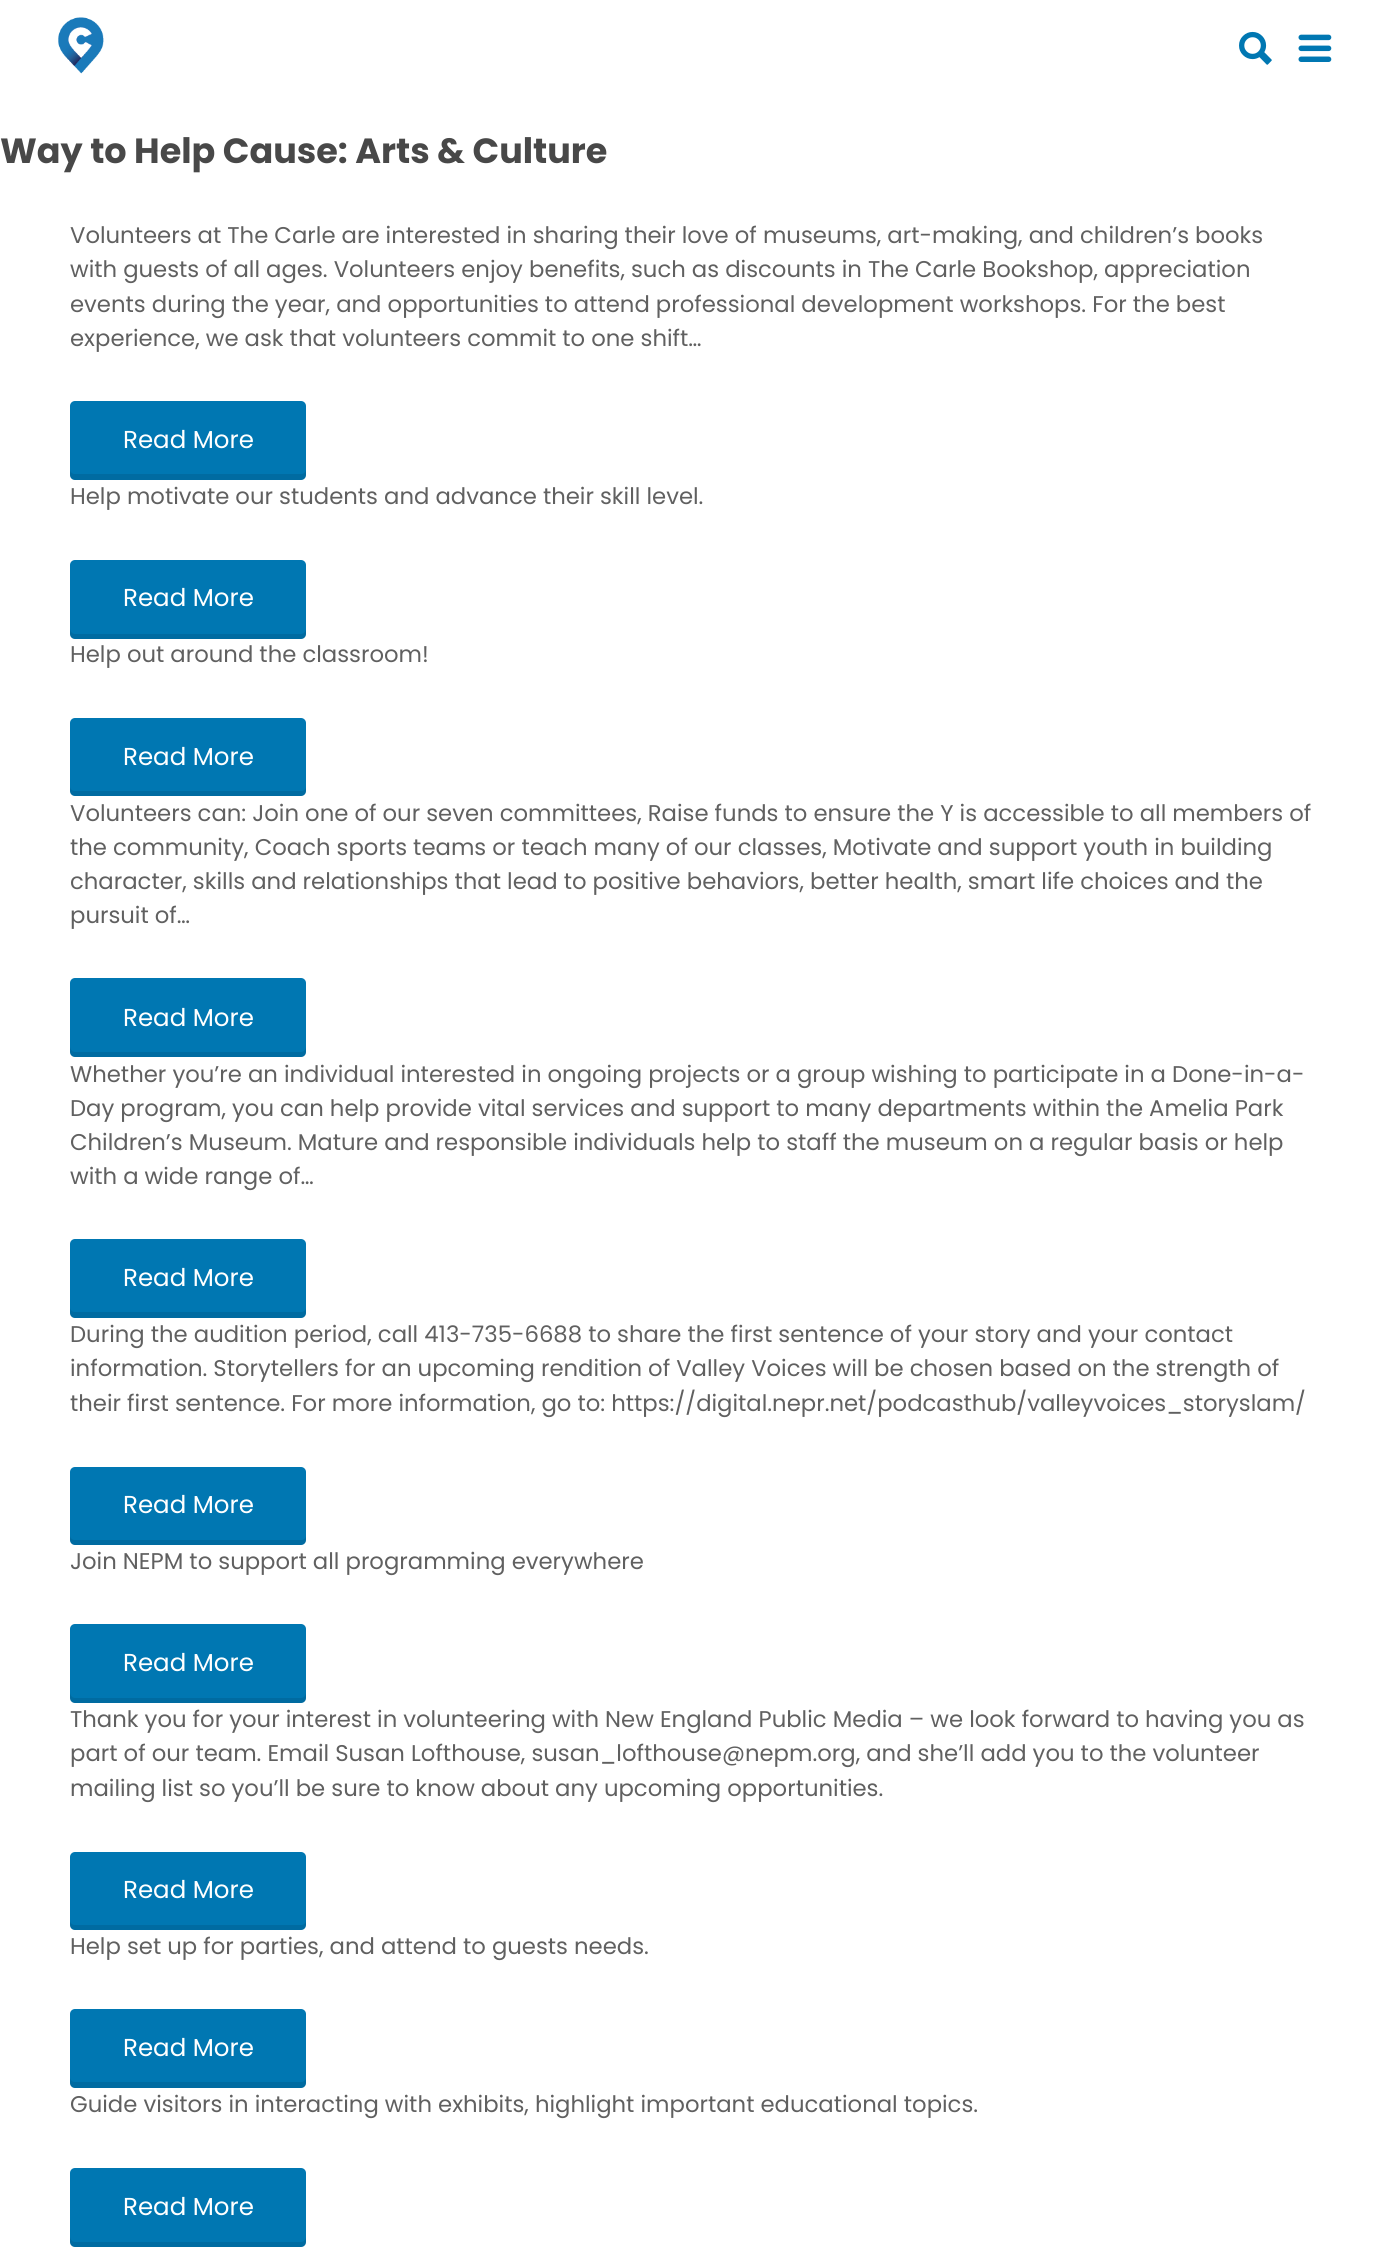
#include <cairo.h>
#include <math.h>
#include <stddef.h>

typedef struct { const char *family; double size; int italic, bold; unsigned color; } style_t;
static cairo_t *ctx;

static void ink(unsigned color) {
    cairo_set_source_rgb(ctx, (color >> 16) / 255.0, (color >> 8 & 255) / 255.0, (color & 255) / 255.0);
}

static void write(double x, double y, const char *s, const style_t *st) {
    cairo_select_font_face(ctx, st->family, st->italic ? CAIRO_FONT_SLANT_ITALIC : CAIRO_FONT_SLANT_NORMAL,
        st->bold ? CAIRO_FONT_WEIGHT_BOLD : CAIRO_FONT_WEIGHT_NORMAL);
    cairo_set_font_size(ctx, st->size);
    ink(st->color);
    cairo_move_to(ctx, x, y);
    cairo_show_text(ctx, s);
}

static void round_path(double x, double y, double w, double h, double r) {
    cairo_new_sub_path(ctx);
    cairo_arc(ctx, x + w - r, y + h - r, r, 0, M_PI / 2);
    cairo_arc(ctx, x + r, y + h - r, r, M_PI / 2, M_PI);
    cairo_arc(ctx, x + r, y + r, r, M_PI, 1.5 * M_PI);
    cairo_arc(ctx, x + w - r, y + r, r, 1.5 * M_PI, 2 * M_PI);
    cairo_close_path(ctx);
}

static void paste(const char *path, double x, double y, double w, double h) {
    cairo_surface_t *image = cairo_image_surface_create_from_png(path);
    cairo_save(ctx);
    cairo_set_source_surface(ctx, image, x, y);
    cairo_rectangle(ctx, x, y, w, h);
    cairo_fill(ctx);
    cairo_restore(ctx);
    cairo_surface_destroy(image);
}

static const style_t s1 = {"Poppins", 35, 0, 1, 0x484848};
static const style_t s2 = {"Poppins", 22.75, 0, 0, 0x606060};
static const style_t s3 = {"Poppins", 24.5, 0, 0, 0xffffff};

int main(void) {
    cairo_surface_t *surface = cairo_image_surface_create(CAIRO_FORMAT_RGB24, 1383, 2260);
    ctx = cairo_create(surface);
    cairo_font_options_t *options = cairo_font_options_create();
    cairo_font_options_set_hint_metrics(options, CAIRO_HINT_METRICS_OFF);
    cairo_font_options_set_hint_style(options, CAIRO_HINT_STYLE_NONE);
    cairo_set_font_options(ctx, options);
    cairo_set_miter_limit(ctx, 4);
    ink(0xffffff);
    cairo_paint(ctx);
    paste("pic1.png", 58, 17, 46, 57);
    paste("pic2.png", 1239, 31, 33, 34);
    paste("pic3.png", 1298, 34, 34, 28);
    write(0, 163, "Way to Help Cause: Arts & Culture", &s1);
    write(70, 243, "Volunteers at The Carle are interested in sharing their love of museums, art-making, and children’s books", &s2);
    write(70, 277, "with guests of all ages. Volunteers enjoy benefits, such as discounts in The Carle Bookshop, appreciation", &s2);
    write(70, 312, "events during the year, and opportunities to attend professional development workshops. For the best", &s2);
    write(70, 346, "experience, we ask that volunteers commit to one shift…", &s2);
    ink(0x0077b2);
    round_path(70, 401, 236, 79, 5);
    cairo_fill(ctx);
    cairo_set_source_rgba(ctx, 0, 0, 0, 0.1);
    cairo_new_path(ctx);
    cairo_move_to(ctx, 70, 469);
    cairo_line_to(ctx, 70, 475);
    cairo_curve_to(ctx, 70, 478, 72, 480, 75, 480);
    cairo_line_to(ctx, 301, 480);
    cairo_curve_to(ctx, 304, 480, 306, 478, 306, 475);
    cairo_line_to(ctx, 306, 469);
    cairo_curve_to(ctx, 306, 472, 304, 474, 301, 474);
    cairo_line_to(ctx, 75, 474);
    cairo_curve_to(ctx, 72, 474, 70, 472, 70, 469);
    cairo_close_path(ctx);
    cairo_fill(ctx);
    write(123, 448, "Read More", &s3);
    write(70, 504, "Help motivate our students and advance their skill level.", &s2);
    ink(0x0077b2);
    round_path(70, 560, 236, 79, 5);
    cairo_fill(ctx);
    cairo_set_source_rgba(ctx, 0, 0, 0, 0.1);
    cairo_new_path(ctx);
    cairo_move_to(ctx, 70, 628);
    cairo_line_to(ctx, 70, 634);
    cairo_curve_to(ctx, 70, 637, 72, 639, 75, 639);
    cairo_line_to(ctx, 301, 639);
    cairo_curve_to(ctx, 304, 639, 306, 637, 306, 634);
    cairo_line_to(ctx, 306, 628);
    cairo_curve_to(ctx, 306, 631, 304, 634, 301, 634);
    cairo_line_to(ctx, 75, 634);
    cairo_curve_to(ctx, 72, 634, 70, 631, 70, 628);
    cairo_close_path(ctx);
    cairo_fill(ctx);
    write(123, 606, "Read More", &s3);
    write(70, 662, "Help out around the classroom!", &s2);
    ink(0x0077b2);
    round_path(70, 718, 236, 78, 5);
    cairo_fill(ctx);
    cairo_set_source_rgba(ctx, 0, 0, 0, 0.1);
    cairo_new_path(ctx);
    cairo_move_to(ctx, 70, 786);
    cairo_line_to(ctx, 70, 791);
    cairo_curve_to(ctx, 70, 794, 72, 796, 75, 796);
    cairo_line_to(ctx, 301, 796);
    cairo_curve_to(ctx, 304, 796, 306, 794, 306, 791);
    cairo_line_to(ctx, 306, 786);
    cairo_curve_to(ctx, 306, 789, 304, 791, 301, 791);
    cairo_line_to(ctx, 75, 791);
    cairo_curve_to(ctx, 72, 791, 70, 789, 70, 786);
    cairo_close_path(ctx);
    cairo_fill(ctx);
    write(123, 765, "Read More", &s3);
    write(70, 821, "Volunteers can: Join one of our seven committees, Raise funds to ensure the Y is accessible to all members of", &s2);
    write(70, 855, "the community, Coach sports teams or teach many of our classes, Motivate and support youth in building", &s2);
    write(70, 889, "character, skills and relationships that lead to positive behaviors, better health, smart life choices and the", &s2);
    write(70, 923, "pursuit of…", &s2);
    ink(0x0077b2);
    round_path(70, 978, 236, 79, 5);
    cairo_fill(ctx);
    cairo_set_source_rgba(ctx, 0, 0, 0, 0.1);
    cairo_new_path(ctx);
    cairo_move_to(ctx, 70, 1046);
    cairo_line_to(ctx, 70, 1052);
    cairo_curve_to(ctx, 70, 1055, 72, 1057, 75, 1057);
    cairo_line_to(ctx, 301, 1057);
    cairo_curve_to(ctx, 304, 1057, 306, 1055, 306, 1052);
    cairo_line_to(ctx, 306, 1046);
    cairo_curve_to(ctx, 306, 1049, 304, 1052, 301, 1052);
    cairo_line_to(ctx, 75, 1052);
    cairo_curve_to(ctx, 72, 1052, 70, 1049, 70, 1046);
    cairo_close_path(ctx);
    cairo_fill(ctx);
    write(123, 1026, "Read More", &s3);
    write(70, 1082, "Whether you’re an individual interested in ongoing projects or a group wishing to participate in a Done-in-a-", &s2);
    write(70, 1116, "Day program, you can help provide vital services and support to many departments within the Amelia Park", &s2);
    write(70, 1150, "Children’s Museum. Mature and responsible individuals help to staff the museum on a regular basis or help", &s2);
    write(70, 1184, "with a wide range of…", &s2);
    ink(0x0077b2);
    round_path(70, 1239, 236, 79, 5);
    cairo_fill(ctx);
    cairo_set_source_rgba(ctx, 0, 0, 0, 0.1);
    cairo_new_path(ctx);
    cairo_move_to(ctx, 70, 1307);
    cairo_line_to(ctx, 70, 1313);
    cairo_curve_to(ctx, 70, 1316, 72, 1318, 75, 1318);
    cairo_line_to(ctx, 301, 1318);
    cairo_curve_to(ctx, 304, 1318, 306, 1316, 306, 1313);
    cairo_line_to(ctx, 306, 1307);
    cairo_curve_to(ctx, 306, 1310, 304, 1312, 301, 1312);
    cairo_line_to(ctx, 75, 1312);
    cairo_curve_to(ctx, 72, 1312, 70, 1310, 70, 1307);
    cairo_close_path(ctx);
    cairo_fill(ctx);
    write(123, 1286, "Read More", &s3);
    write(70, 1342, "During the audition period, call 413-735-6688 to share the first sentence of your story and your contact", &s2);
    write(70, 1376, "information. Storytellers for an upcoming rendition of Valley Voices will be chosen based on the strength of", &s2);
    write(70, 1411, "their first sentence. For more information, go to: https://digital.nepr.net/podcasthub/valleyvoices_storyslam/", &s2);
    ink(0x0077b2);
    round_path(70, 1467, 236, 78, 5);
    cairo_fill(ctx);
    cairo_set_source_rgba(ctx, 0, 0, 0, 0.1);
    cairo_new_path(ctx);
    cairo_move_to(ctx, 70, 1535);
    cairo_line_to(ctx, 70, 1540);
    cairo_curve_to(ctx, 70, 1543, 72, 1545, 75, 1545);
    cairo_line_to(ctx, 301, 1545);
    cairo_curve_to(ctx, 304, 1545, 306, 1543, 306, 1540);
    cairo_line_to(ctx, 306, 1535);
    cairo_curve_to(ctx, 306, 1538, 304, 1540, 301, 1540);
    cairo_line_to(ctx, 75, 1540);
    cairo_curve_to(ctx, 72, 1540, 70, 1538, 70, 1535);
    cairo_close_path(ctx);
    cairo_fill(ctx);
    write(123, 1513, "Read More", &s3);
    write(70, 1569, "Join NEPM to support all programming everywhere", &s2);
    ink(0x0077b2);
    round_path(70, 1624, 236, 79, 5);
    cairo_fill(ctx);
    cairo_set_source_rgba(ctx, 0, 0, 0, 0.1);
    cairo_new_path(ctx);
    cairo_move_to(ctx, 70, 1692);
    cairo_line_to(ctx, 70, 1698);
    cairo_curve_to(ctx, 70, 1701, 72, 1703, 75, 1703);
    cairo_line_to(ctx, 301, 1703);
    cairo_curve_to(ctx, 304, 1703, 306, 1701, 306, 1698);
    cairo_line_to(ctx, 306, 1692);
    cairo_curve_to(ctx, 306, 1695, 304, 1698, 301, 1698);
    cairo_line_to(ctx, 75, 1698);
    cairo_curve_to(ctx, 72, 1698, 70, 1695, 70, 1692);
    cairo_close_path(ctx);
    cairo_fill(ctx);
    write(123, 1671, "Read More", &s3);
    write(70, 1727, "Thank you for your interest in volunteering with New England Public Media – we look forward to having you as", &s2);
    write(70, 1761, "part of our team. Email Susan Lofthouse, susan_lofthouse@nepm.org, and she’ll add you to the volunteer", &s2);
    write(70, 1796, "mailing list so you’ll be sure to know about any upcoming opportunities.", &s2);
    ink(0x0077b2);
    round_path(70, 1852, 236, 78, 5);
    cairo_fill(ctx);
    cairo_set_source_rgba(ctx, 0, 0, 0, 0.1);
    cairo_new_path(ctx);
    cairo_move_to(ctx, 70, 1920);
    cairo_line_to(ctx, 70, 1925);
    cairo_curve_to(ctx, 70, 1928, 72, 1930, 75, 1930);
    cairo_line_to(ctx, 301, 1930);
    cairo_curve_to(ctx, 304, 1930, 306, 1928, 306, 1925);
    cairo_line_to(ctx, 306, 1920);
    cairo_curve_to(ctx, 306, 1923, 304, 1925, 301, 1925);
    cairo_line_to(ctx, 75, 1925);
    cairo_curve_to(ctx, 72, 1925, 70, 1923, 70, 1920);
    cairo_close_path(ctx);
    cairo_fill(ctx);
    write(123, 1898, "Read More", &s3);
    write(70, 1954, "Help set up for parties, and attend to guests needs.", &s2);
    ink(0x0077b2);
    round_path(70, 2009, 236, 79, 5);
    cairo_fill(ctx);
    cairo_set_source_rgba(ctx, 0, 0, 0, 0.1);
    cairo_new_path(ctx);
    cairo_move_to(ctx, 70, 2077);
    cairo_line_to(ctx, 70, 2083);
    cairo_curve_to(ctx, 70, 2086, 72, 2088, 75, 2088);
    cairo_line_to(ctx, 301, 2088);
    cairo_curve_to(ctx, 304, 2088, 306, 2086, 306, 2083);
    cairo_line_to(ctx, 306, 2077);
    cairo_curve_to(ctx, 306, 2080, 304, 2082, 301, 2082);
    cairo_line_to(ctx, 75, 2082);
    cairo_curve_to(ctx, 72, 2082, 70, 2080, 70, 2077);
    cairo_close_path(ctx);
    cairo_fill(ctx);
    write(123, 2056, "Read More", &s3);
    write(70, 2112, "Guide visitors in interacting with exhibits, highlight important educational topics.", &s2);
    ink(0x0077b2);
    round_path(70, 2168, 236, 79, 5);
    cairo_fill(ctx);
    cairo_set_source_rgba(ctx, 0, 0, 0, 0.1);
    cairo_new_path(ctx);
    cairo_move_to(ctx, 70, 2236);
    cairo_line_to(ctx, 70, 2242);
    cairo_curve_to(ctx, 70, 2245, 72, 2247, 75, 2247);
    cairo_line_to(ctx, 301, 2247);
    cairo_curve_to(ctx, 304, 2247, 306, 2245, 306, 2242);
    cairo_line_to(ctx, 306, 2236);
    cairo_curve_to(ctx, 306, 2239, 304, 2242, 301, 2242);
    cairo_line_to(ctx, 75, 2242);
    cairo_curve_to(ctx, 72, 2242, 70, 2239, 70, 2236);
    cairo_close_path(ctx);
    cairo_fill(ctx);
    write(123, 2215, "Read More", &s3);
    cairo_surface_write_to_png(surface, "screenshot.png");
    cairo_font_options_destroy(options);
    cairo_destroy(ctx);
    cairo_surface_destroy(surface);
    return 0;
}
